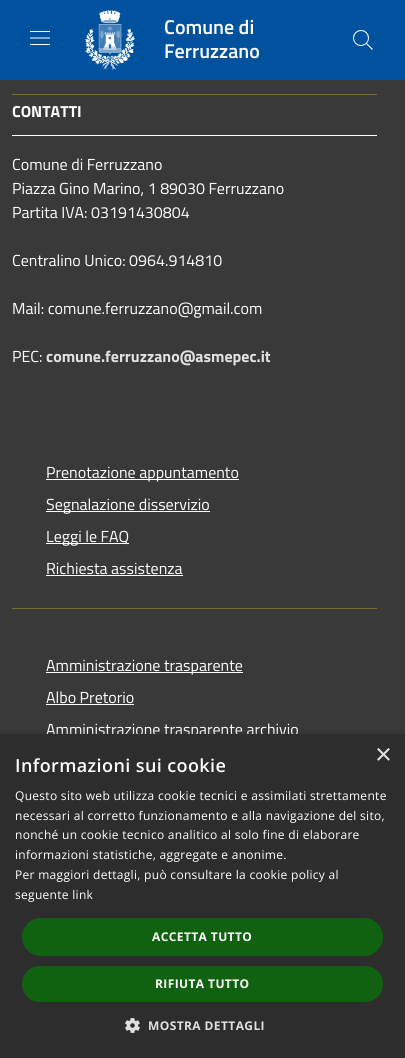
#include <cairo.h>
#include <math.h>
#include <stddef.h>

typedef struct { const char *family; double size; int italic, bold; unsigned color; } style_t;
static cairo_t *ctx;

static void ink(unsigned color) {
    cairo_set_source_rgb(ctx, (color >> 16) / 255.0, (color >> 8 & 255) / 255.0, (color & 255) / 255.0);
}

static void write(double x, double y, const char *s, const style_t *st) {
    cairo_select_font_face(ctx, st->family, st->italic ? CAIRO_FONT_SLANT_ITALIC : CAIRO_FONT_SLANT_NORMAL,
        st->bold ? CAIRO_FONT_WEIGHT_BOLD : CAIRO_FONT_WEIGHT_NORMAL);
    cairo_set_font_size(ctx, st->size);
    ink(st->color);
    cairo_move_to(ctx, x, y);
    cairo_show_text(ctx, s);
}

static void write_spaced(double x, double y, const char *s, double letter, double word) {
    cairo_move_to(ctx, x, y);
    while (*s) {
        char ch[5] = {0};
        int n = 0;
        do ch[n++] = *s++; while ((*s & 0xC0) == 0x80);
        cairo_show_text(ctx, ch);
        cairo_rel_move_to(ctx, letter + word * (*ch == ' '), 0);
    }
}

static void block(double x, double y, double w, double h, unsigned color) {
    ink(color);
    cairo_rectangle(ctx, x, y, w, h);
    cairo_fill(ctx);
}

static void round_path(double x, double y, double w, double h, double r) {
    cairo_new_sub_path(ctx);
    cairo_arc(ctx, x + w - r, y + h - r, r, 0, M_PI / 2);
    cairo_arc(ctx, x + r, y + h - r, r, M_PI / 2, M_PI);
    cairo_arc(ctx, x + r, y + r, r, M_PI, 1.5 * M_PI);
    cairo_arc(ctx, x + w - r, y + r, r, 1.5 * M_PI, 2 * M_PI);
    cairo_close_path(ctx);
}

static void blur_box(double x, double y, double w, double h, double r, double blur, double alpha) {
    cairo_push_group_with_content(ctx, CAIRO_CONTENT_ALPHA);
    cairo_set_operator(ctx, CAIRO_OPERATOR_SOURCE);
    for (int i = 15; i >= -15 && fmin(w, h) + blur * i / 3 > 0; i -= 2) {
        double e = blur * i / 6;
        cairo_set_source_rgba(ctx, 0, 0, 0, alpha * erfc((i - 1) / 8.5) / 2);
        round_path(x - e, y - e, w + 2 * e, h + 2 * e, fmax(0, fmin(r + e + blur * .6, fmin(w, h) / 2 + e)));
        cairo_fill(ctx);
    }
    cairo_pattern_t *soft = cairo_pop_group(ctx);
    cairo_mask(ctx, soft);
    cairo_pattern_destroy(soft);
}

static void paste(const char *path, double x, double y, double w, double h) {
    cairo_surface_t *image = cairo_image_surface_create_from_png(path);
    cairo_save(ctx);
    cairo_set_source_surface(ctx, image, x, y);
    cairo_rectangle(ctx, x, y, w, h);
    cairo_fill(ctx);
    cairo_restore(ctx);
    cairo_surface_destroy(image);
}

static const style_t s1 = {"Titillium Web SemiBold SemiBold", 20, 0, 0, 0xffffff};
static const style_t s2 = {"Titillium Web", 16, 0, 1, 0xffffff};
static const style_t s3 = {"Titillium Web", 16, 0, 0, 0xffffff};
static const style_t s4 = {"Titillium Web", 16, 0, 1, 0xe0e0e0};
static const style_t s5 = {"Liberation Sans", 29, 0, 0, 0xe0e0e0};

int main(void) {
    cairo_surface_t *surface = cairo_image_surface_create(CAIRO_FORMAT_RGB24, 405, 1058);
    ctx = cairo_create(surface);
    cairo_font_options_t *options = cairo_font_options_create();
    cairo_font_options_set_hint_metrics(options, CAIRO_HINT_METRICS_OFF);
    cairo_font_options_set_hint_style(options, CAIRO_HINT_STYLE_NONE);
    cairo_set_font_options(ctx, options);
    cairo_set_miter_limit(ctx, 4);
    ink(0x393939);
    cairo_paint(ctx);
    block(0, 0, 405, 80, 0x00529e);
    paste("pic1.png", 30, 31, 20, 14);
    paste("pic2.png", 85, 10, 50, 60);
    write(164, 34, "Comune di", &s1);
    write(164, 58, "Ferruzzano", &s1);
    paste("pic3.png", 353, 30, 20, 20);
    block(12, 94, 365, 1, 0x796c31);
    block(12, 135, 365, 1, 0xffffff);
    write(12, 117, "CONTATTI", &s2);
    write(12, 170, "Comune di Ferruzzano", &s3);
    write(12, 194, "Piazza Gino Marino, 1 89030 Ferruzzano", &s3);
    write(12, 218, "Partita IVA: 03191430804", &s3);
    write(12, 266, "Centralino Unico: 0964.914810", &s3);
    write(12, 314, "Mail: comune.ferruzzano@gmail.com", &s3);
    write(12, 362, "PEC:", &s3);
    write(46, 362, "comune.ferruzzano@asmepec.it", &s4);
    block(12, 608, 365, 1, 0x796c31);
    block(46, 479, 193, 1, 0xffffff);
    write(46, 478, "Prenotazione appuntamento", &s3);
    block(46, 511, 164, 1, 0xffffff);
    write(46, 510, "Segnalazione disservizio", &s3);
    block(46, 543, 83, 1, 0xffffff);
    write(46, 542, "Leggi le FAQ", &s3);
    write(46, 574, "Richiesta assistenza", &s3);
    block(46, 575, 137, 1, 0xffffff);
    block(46, 672, 197, 1, 0xffffff);
    write(46, 671, "Amministrazione trasparente", &s3);
    write(46, 703, "Albo Pretorio", &s3);
    block(46, 704, 88, 1, 0xffffff);
    write(46, 735, "Amministrazione trasparente archivio", &s3);
    ink(0x000000);
    blur_box(1, 736, 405, 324, 0, 4, 0.35);
    block(0, 734, 405, 324, 0x2d2d2d);
    write(375, 764, "×", &s5);
    cairo_select_font_face(ctx, "Open Sans SemiBold", CAIRO_FONT_SLANT_NORMAL, CAIRO_FONT_WEIGHT_NORMAL);
    cairo_set_font_size(ctx, 18);
    ink(0xffffff);
    write_spaced(15, 772, "Informazioni sui cookie", 0.4, 0);
    cairo_select_font_face(ctx, "Open Sans", CAIRO_FONT_SLANT_NORMAL, CAIRO_FONT_WEIGHT_NORMAL);
    cairo_set_font_size(ctx, 12);
    write_spaced(15, 800, "Questo sito web utilizza cookie tecnici e assimilati strettamente", 0.3, 0);
    write_spaced(15, 820, "necessari al corretto funzionamento e alla navigazione del sito,", 0.3, 0);
    write_spaced(15, 839, "nonché un cookie tecnico analitico al solo fine di elaborare", 0.3, 0);
    write_spaced(15, 859, "informazioni statistiche, aggregate e anonime.", 0.3, 0);
    write_spaced(15, 879, "Per maggiori dettagli, può consultare la cookie policy al", 0.3, 0);
    write_spaced(15, 899, "seguente link", 0.3, 0);
    ink(0x106110);
    round_path(22, 918, 361, 38, 19);
    cairo_fill(ctx);
    cairo_select_font_face(ctx, "Open Sans", CAIRO_FONT_SLANT_NORMAL, CAIRO_FONT_WEIGHT_BOLD);
    ink(0xffffff);
    write_spaced(152, 941, "ACCETTA TUTTO", 0.4, 0);
    ink(0x106110);
    round_path(22, 966, 361, 36, 18);
    cairo_fill(ctx);
    ink(0xffffff);
    write_spaced(155, 988, "RIFIUTA TUTTO", 0.4, 0);
    paste("pic4.png", 125, 1018, 15, 15);
    ink(0xe0e0e0);
    write_spaced(148, 1030, "MOSTRA DETTAGLI", 0.4, 0);
    cairo_surface_write_to_png(surface, "screenshot.png");
    cairo_font_options_destroy(options);
    cairo_destroy(ctx);
    cairo_surface_destroy(surface);
    return 0;
}
